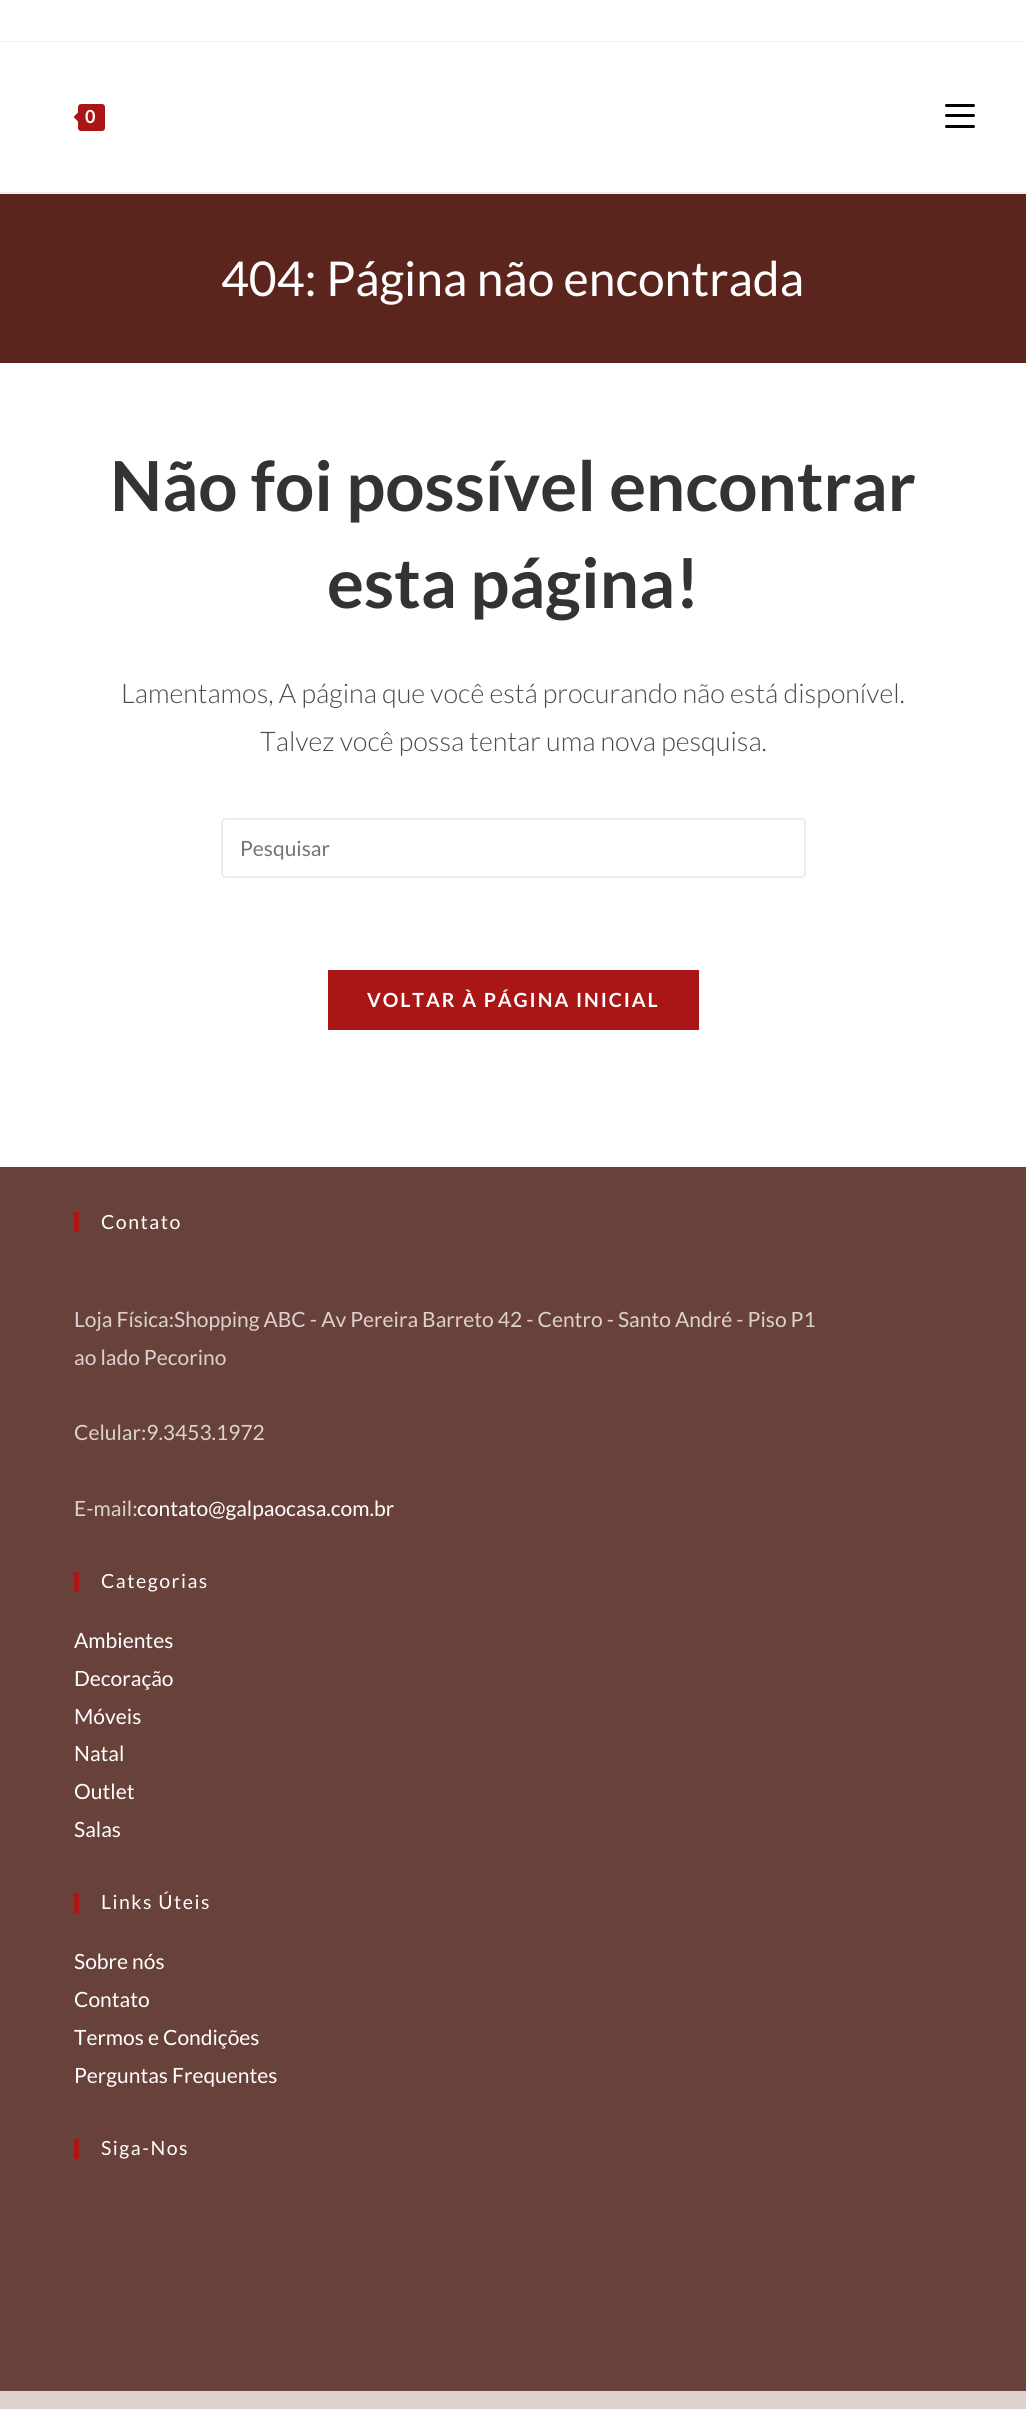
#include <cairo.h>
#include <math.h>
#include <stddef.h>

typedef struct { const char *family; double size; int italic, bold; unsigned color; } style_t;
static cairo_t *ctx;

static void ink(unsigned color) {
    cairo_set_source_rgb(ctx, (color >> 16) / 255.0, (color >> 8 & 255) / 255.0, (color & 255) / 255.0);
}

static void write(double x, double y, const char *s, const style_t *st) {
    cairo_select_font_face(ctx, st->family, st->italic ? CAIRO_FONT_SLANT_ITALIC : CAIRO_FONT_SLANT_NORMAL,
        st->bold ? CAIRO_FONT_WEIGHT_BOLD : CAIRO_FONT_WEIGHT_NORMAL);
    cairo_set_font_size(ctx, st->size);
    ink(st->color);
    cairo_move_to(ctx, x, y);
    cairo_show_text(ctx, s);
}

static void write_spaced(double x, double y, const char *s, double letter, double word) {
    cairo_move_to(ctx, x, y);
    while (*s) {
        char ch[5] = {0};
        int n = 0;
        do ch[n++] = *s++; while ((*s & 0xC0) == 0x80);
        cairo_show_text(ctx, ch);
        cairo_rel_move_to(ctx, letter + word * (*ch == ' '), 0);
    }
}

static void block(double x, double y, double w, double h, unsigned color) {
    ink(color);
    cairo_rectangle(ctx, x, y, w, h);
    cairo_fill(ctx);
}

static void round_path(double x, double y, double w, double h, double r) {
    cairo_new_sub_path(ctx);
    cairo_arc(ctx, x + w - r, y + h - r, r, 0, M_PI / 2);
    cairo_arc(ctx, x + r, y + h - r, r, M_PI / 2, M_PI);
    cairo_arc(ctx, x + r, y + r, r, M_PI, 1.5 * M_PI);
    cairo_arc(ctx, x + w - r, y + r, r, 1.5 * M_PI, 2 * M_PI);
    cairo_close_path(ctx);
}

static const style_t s1 = {"Lato", 48, 0, 0, 0xffffff};
static const style_t s2 = {"Lato", 69, 0, 1, 0x333333};
static const style_t s3 = {"Lato Light", 27, 0, 0, 0x4a4a4a};
static const style_t s4 = {"Lato", 21, 0, 0, 0x757575};
static const style_t s5 = {"Lato", 21, 0, 0, 0xddd1cf};
static const style_t s6 = {"Lato", 21, 0, 0, 0xffffff};

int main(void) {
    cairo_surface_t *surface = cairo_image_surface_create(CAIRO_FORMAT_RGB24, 1026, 2409);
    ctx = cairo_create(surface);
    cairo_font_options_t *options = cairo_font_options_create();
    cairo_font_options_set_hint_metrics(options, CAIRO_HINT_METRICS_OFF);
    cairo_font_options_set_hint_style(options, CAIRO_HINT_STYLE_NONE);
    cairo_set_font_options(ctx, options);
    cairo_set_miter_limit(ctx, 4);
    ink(0xffffff);
    cairo_paint(ctx);
    block(0, 41, 1026, 1, 0xf1f1f1);
    block(0, 192, 1026, 2, 0xf1f1f1);
    ink(0xaa1616);
    round_path(78, 104, 27, 27, 3);
    cairo_fill(ctx);
    cairo_new_path(ctx);
    cairo_move_to(ctx, 81, 109.5);
    cairo_line_to(ctx, 81, 124.5);
    cairo_line_to(ctx, 73.5, 117);
    cairo_close_path(ctx);
    cairo_fill(ctx);
    cairo_select_font_face(ctx, "Lato", CAIRO_FONT_SLANT_NORMAL, CAIRO_FONT_WEIGHT_BOLD);
    cairo_set_font_size(ctx, 18);
    ink(0xffffff);
    write_spaced(85, 123, "0", 1.5, 0);
    ink(0x000000);
    round_path(945, 125, 30, 3, 1.5);
    cairo_fill(ctx);
    round_path(945, 104, 30, 3, 1.5);
    cairo_fill(ctx);
    round_path(945, 114, 30, 3, 1.5);
    cairo_fill(ctx);
    block(0, 194, 1026, 169, 0x5b251d);
    write(221, 296, "404: Página não encontrada", &s1);
    write(110, 511, "Não foi possível encontrar", &s2);
    write(327, 608, "esta página!", &s2);
    write(121, 703, "Lamentamos, A página que você está procurando não está disponível.", &s3);
    write(260, 751, "Talvez você possa tentar uma nova pesquisa.", &s3);
    round_path(222, 819, 583, 58, 4);
    ink(0xececec);
    cairo_stroke(ctx);
    write(240, 856, "Pesquisar", &s4);
    block(328, 970, 371, 60, 0xaa1616);
    cairo_select_font_face(ctx, "Lato", CAIRO_FONT_SLANT_NORMAL, CAIRO_FONT_WEIGHT_BOLD);
    cairo_set_font_size(ctx, 19.5);
    ink(0xffffff);
    write_spaced(367, 1007, "VOLTAR À PÁGINA INICIAL", 1.95, 0);
    block(0, 1167, 1026, 1224, 0x68413a);
    block(74, 1212, 5, 20, 0xaa1616);
    cairo_select_font_face(ctx, "Lato", CAIRO_FONT_SLANT_NORMAL, CAIRO_FONT_WEIGHT_NORMAL);
    ink(0xffffff);
    write_spaced(101, 1229, "Contato", 1.5, 0);
    write(74, 1327, "Loja Física:Shopping ABC - Av Pereira Barreto 42 - Centro - Santo André - Piso P1", &s5);
    write(74, 1365, "ao lado Pecorino", &s5);
    write(74, 1440, "Celular:9.3453.1972", &s5);
    write(74, 1516, "E-mail:", &s5);
    write(137, 1516, "contato@galpaocasa.com.br", &s6);
    block(74, 1572, 5, 20, 0xaa1616);
    cairo_set_font_size(ctx, 19.5);
    ink(0xffffff);
    write_spaced(101, 1588, "Categorias", 1.5, 0);
    write(74, 1648, "Ambientes", &s6);
    write(74, 1686, "Decoração", &s6);
    write(74, 1724, "Móveis", &s6);
    write(74, 1761, "Natal", &s6);
    write(74, 1799, "Outlet", &s6);
    write(74, 1837, "Salas", &s6);
    block(74, 1893, 5, 20, 0xaa1616);
    cairo_set_font_size(ctx, 19.5);
    ink(0xffffff);
    write_spaced(101, 1909, "Links Úteis", 1.5, 0);
    write(74, 1969, "Sobre nós", &s6);
    write(74, 2007, "Contato", &s6);
    write(74, 2045, "Termos e Condições", &s6);
    write(74, 2083, "Perguntas Frequentes", &s6);
    block(74, 2139, 5, 20, 0xaa1616);
    cairo_set_font_size(ctx, 19.5);
    ink(0xffffff);
    write_spaced(101, 2155, "Siga-Nos", 1.5, 0);
    block(0, 2391, 1026, 18, 0xddd1cf);
    cairo_surface_write_to_png(surface, "screenshot.png");
    cairo_font_options_destroy(options);
    cairo_destroy(ctx);
    cairo_surface_destroy(surface);
    return 0;
}
